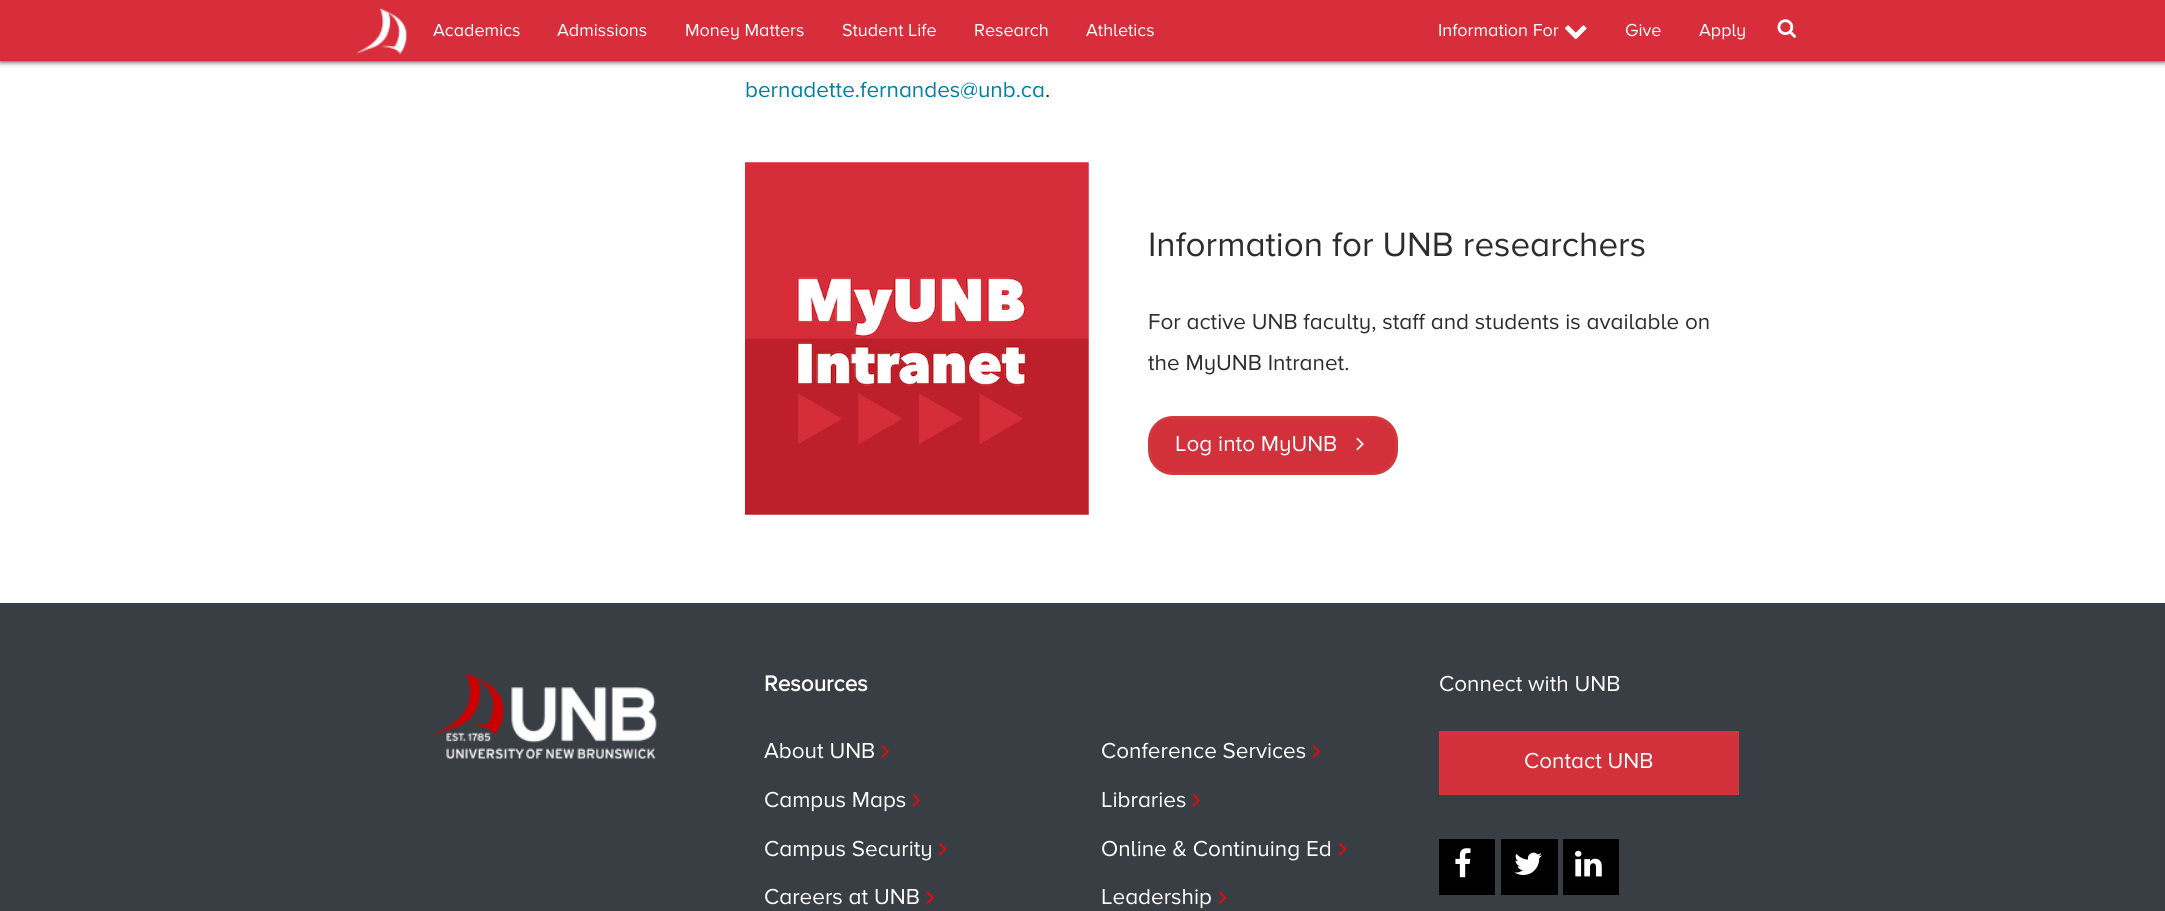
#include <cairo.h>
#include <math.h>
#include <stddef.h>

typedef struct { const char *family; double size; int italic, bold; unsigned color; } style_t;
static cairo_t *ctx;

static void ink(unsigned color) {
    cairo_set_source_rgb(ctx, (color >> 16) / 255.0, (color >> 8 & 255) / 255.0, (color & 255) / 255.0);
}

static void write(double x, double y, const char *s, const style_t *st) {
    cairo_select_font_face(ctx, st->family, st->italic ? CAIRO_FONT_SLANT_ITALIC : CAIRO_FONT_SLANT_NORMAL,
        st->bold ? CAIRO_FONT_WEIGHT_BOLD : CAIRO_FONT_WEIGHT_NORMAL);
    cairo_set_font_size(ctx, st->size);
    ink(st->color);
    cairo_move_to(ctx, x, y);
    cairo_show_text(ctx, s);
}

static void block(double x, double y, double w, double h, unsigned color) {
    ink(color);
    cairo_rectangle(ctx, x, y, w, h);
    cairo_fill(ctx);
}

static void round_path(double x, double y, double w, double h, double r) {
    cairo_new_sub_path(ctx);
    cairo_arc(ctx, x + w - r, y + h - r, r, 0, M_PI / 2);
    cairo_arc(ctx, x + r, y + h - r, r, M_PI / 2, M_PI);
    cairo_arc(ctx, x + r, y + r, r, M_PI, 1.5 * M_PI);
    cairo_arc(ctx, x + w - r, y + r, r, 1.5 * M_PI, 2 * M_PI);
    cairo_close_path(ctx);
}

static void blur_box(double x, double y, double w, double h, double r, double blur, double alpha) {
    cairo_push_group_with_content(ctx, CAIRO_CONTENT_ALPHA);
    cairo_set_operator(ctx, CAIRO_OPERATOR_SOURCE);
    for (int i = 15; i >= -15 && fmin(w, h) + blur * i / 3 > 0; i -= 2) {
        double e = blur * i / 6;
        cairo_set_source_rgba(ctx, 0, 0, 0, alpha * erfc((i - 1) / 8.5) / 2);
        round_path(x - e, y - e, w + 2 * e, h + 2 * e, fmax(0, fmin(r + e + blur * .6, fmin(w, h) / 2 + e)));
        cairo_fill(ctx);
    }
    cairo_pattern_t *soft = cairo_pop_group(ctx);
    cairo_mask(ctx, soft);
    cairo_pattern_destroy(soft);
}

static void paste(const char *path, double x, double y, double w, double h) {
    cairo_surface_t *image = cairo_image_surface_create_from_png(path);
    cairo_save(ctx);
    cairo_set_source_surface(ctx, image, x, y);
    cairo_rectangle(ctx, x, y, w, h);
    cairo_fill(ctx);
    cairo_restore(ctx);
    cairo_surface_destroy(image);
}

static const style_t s1 = {"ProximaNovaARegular", 18, 0, 0, 0xffffff};
static const style_t s2 = {"ProximaNovaARegular", 22.5, 0, 0, 0x007fa3};
static const style_t s3 = {"ProximaNovaARegular", 22.5, 0, 0, 0x2d2d2d};
static const style_t s4 = {"ProximaNovaARegular", 35, 0, 0, 0x2d2d2d};
static const style_t s5 = {"ProximaNovaARegular", 22.5, 0, 0, 0xffffff};
static const style_t s6 = {"ProximaNovaARegular", 22.5, 0, 1, 0xffffff};

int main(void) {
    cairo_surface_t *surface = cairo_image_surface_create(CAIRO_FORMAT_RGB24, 2165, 911);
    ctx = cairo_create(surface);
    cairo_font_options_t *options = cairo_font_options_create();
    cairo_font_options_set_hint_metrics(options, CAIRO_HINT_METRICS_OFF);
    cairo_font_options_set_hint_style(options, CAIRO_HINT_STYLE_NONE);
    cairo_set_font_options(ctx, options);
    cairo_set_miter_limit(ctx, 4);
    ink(0xffffff);
    cairo_paint(ctx);
    ink(0x000000);
    blur_box(0, 0, 2165, 61, 0, 3, 1);
    block(0, 0, 2165, 61, 0xd82e3b);
    paste("pic1.png", 357, 8, 50, 46);
    write(433, 36, "Academics", &s1);
    write(557, 36, "Admissions", &s1);
    write(685, 36, "Money Matters", &s1);
    write(842, 36, "Student Life", &s1);
    write(974, 36, "Research", &s1);
    write(1086, 36, "Athletics", &s1);
    write(1438, 36, "Information For", &s1);
    paste("pic2.png", 1565, 25, 22, 15);
    write(1625, 36, "Give", &s1);
    write(1699, 36, "Apply", &s1);
    paste("pic3.png", 1777, 19, 20, 19);
    write(745, 97, "bernadette.fernandes@unb.ca", &s2);
    write(1045, 97, ".", &s3);
    paste("pic4.png", 745, 162, 344, 353);
    write(1148, 256, "Information for UNB researchers", &s4);
    write(1148, 329, "For active UNB faculty, staff and students is available on", &s3);
    write(1148, 370, "the MyUNB Intranet.", &s3);
    ink(0xd2303b);
    round_path(1149.5, 417.5, 247, 56, 23.5);
    cairo_fill_preserve(ctx);
    ink(0xd2393b);
    cairo_set_line_width(ctx, 3);
    cairo_stroke(ctx);
    write(1175, 451, "Log into MyUNB", &s5);
    paste("pic5.png", 1356, 437, 8, 14);
    block(0, 603, 2165, 308, 0x393e44);
    paste("pic6.png", 435, 673, 222, 86);
    write(764, 691, "Resources", &s6);
    write(764, 758, "About UNB", &s5);
    paste("pic7.png", 881, 745, 8, 13);
    write(764, 807, "Campus Maps", &s5);
    paste("pic8.png", 912, 794, 8, 13);
    write(764, 856, "Campus Security", &s5);
    paste("pic9.png", 939, 842, 8, 14);
    write(764, 904, "Careers at UNB", &s5);
    paste("pic10.png", 926, 891, 8, 13);
    write(1101, 758, "Conference Services", &s5);
    paste("pic11.png", 1312, 745, 8, 13);
    write(1101, 807, "Libraries", &s5);
    paste("pic8.png", 1192, 794, 8, 13);
    write(1101, 856, "Online & Continuing Ed", &s5);
    paste("pic9.png", 1339, 842, 8, 14);
    write(1101, 904, "Leadership", &s5);
    paste("pic12.png", 1219, 891, 8, 13);
    write(1439, 691, "Connect with UNB", &s5);
    ink(0xd2303b);
    cairo_rectangle(ctx, 1439.5, 731.5, 299, 63);
    cairo_fill_preserve(ctx);
    ink(0xd2393b);
    cairo_set_line_width(ctx, 1);
    cairo_stroke(ctx);
    write(1524, 768, "Contact UNB", &s5);
    block(1439, 839, 56, 56, 0x000000);
    paste("pic13.png", 1455, 848, 16, 30);
    block(1501, 839, 57, 56, 0x000000);
    paste("pic14.png", 1514, 852, 28, 23);
    block(1563, 839, 56, 56, 0x000000);
    paste("pic15.png", 1575, 850, 27, 27);
    cairo_surface_write_to_png(surface, "screenshot.png");
    cairo_font_options_destroy(options);
    cairo_destroy(ctx);
    cairo_surface_destroy(surface);
    return 0;
}
